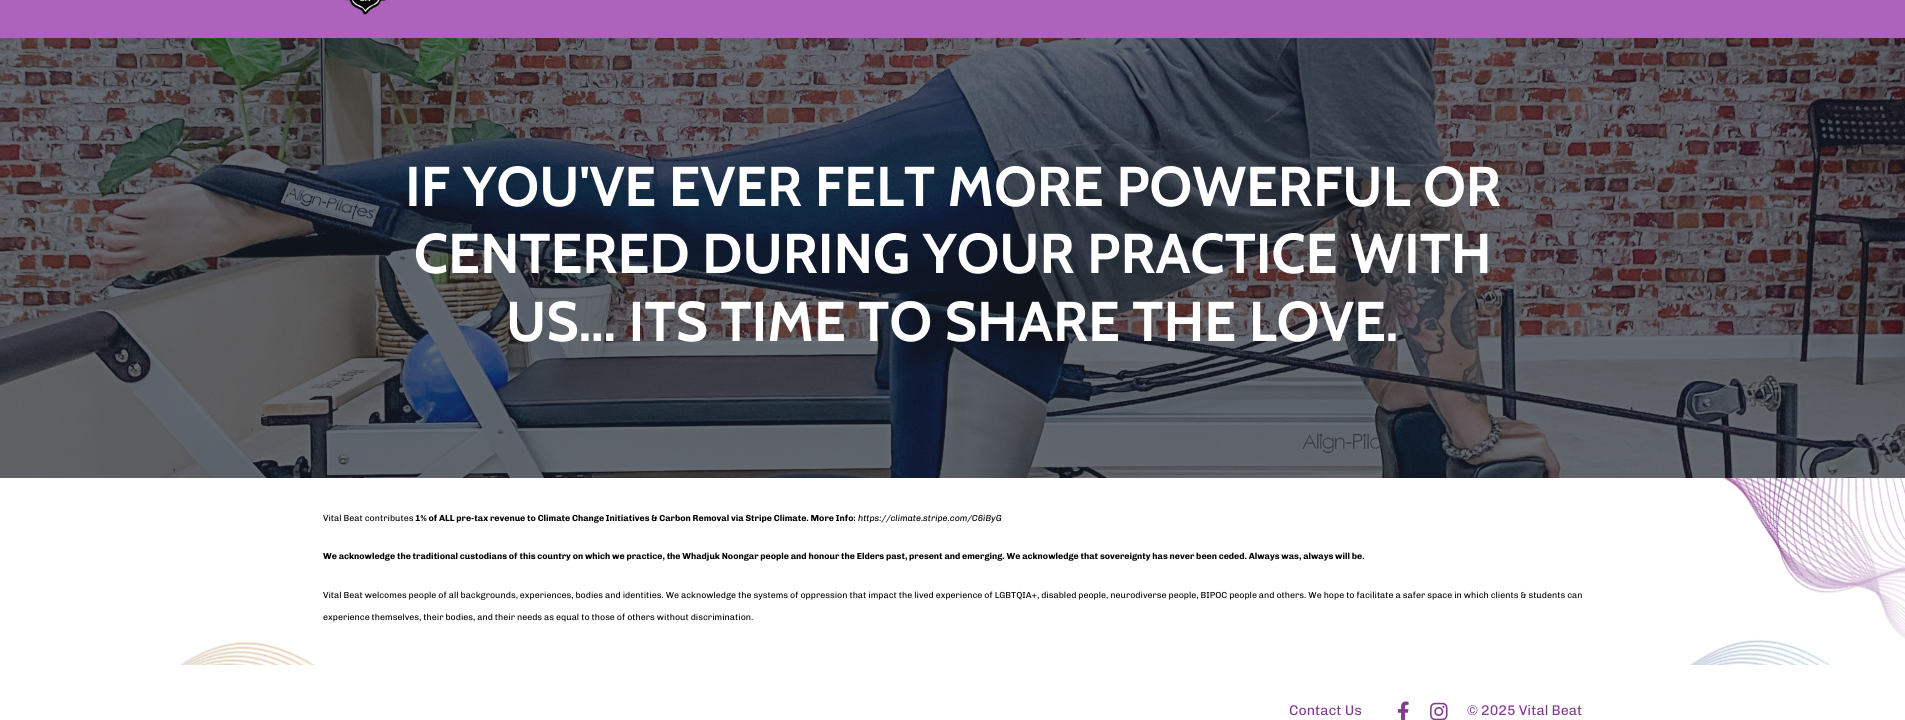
#include <cairo.h>
#include <math.h>
#include <stddef.h>

typedef struct { const char *family; double size; int italic, bold; unsigned color; } style_t;
static cairo_t *ctx;

static void ink(unsigned color) {
    cairo_set_source_rgb(ctx, (color >> 16) / 255.0, (color >> 8 & 255) / 255.0, (color & 255) / 255.0);
}

static void write(double x, double y, const char *s, const style_t *st) {
    cairo_select_font_face(ctx, st->family, st->italic ? CAIRO_FONT_SLANT_ITALIC : CAIRO_FONT_SLANT_NORMAL,
        st->bold ? CAIRO_FONT_WEIGHT_BOLD : CAIRO_FONT_WEIGHT_NORMAL);
    cairo_set_font_size(ctx, st->size);
    ink(st->color);
    cairo_move_to(ctx, x, y);
    cairo_show_text(ctx, s);
}

static void block(double x, double y, double w, double h, unsigned color) {
    ink(color);
    cairo_rectangle(ctx, x, y, w, h);
    cairo_fill(ctx);
}

static void paste(const char *path, double x, double y, double w, double h) {
    cairo_surface_t *image = cairo_image_surface_create_from_png(path);
    cairo_save(ctx);
    cairo_set_source_surface(ctx, image, x, y);
    cairo_rectangle(ctx, x, y, w, h);
    cairo_fill(ctx);
    cairo_restore(ctx);
    cairo_surface_destroy(image);
}

static const style_t s1 = {"Cabin", 56, 0, 1, 0xffffff};
static const style_t s2 = {"Chivo", 8.75, 0, 0, 0x000000};
static const style_t s3 = {"Chivo", 8.75, 0, 1, 0x000000};
static const style_t s4 = {"Chivo", 8.75, 1, 0, 0x000000};
static const style_t s5 = {"Chivo", 14, 0, 0, 0x833a8f};

int main(void) {
    cairo_surface_t *surface = cairo_image_surface_create(CAIRO_FORMAT_RGB24, 1905, 720);
    ctx = cairo_create(surface);
    cairo_font_options_t *options = cairo_font_options_create();
    cairo_font_options_set_hint_metrics(options, CAIRO_HINT_METRICS_OFF);
    cairo_font_options_set_hint_style(options, CAIRO_HINT_STYLE_NONE);
    cairo_set_font_options(ctx, options);
    cairo_set_miter_limit(ctx, 4);
    ink(0xffffff);
    cairo_paint(ctx);
    block(0, 0, 1905, 38, 0xad62bc);
    paste("pic1.png", 344, 0, 43, 15);
    paste("pic2.png", 0, 38, 1905, 440);
    write(405, 206, "IF YOU'VE EVER FELT MORE POWERFUL OR", &s1);
    write(414, 273, "CENTERED DURING YOUR PRACTICE WITH", &s1);
    write(506, 341, "US... ITS TIME TO SHARE THE LOVE.", &s1);
    paste("pic3.png", 180, 478, 1725, 187);
    write(323, 521, "Vital Beat contributes", &s2);
    write(415, 521, "1% of ALL pre-tax revenue to Climate Change Initiatives & Carbon Removal via Stripe Climate. More Info:", &s3);
    write(858, 521, "https://climate.stripe.com/C6iByG", &s4);
    write(323, 559, "We acknowledge the traditional custodians of this country on which we practice, the Whadjuk Noongar people and honour the Elders past, present and emerging. We acknowledge that sovereignty has never been ceded. Always was, always will be.", &s3);
    write(323, 598, "Vital Beat welcomes people of all backgrounds, experiences, bodies and identities. We acknowledge the systems of oppression that impact the lived experience of LGBTQIA+, disabled people, neurodiverse people, BIPOC people and others. We hope to facilitate a safer space in which clients & students can", &s2);
    write(323, 620, "experience themselves, their bodies, and their needs as equal to those of others without discrimination.", &s2);
    write(1289, 715, "Contact Us", &s5);
    paste("pic4.png", 1397, 701, 12, 19);
    paste("pic5.png", 1430, 702, 18, 18);
    write(1467, 715, "© 2025 Vital Beat", &s5);
    cairo_surface_write_to_png(surface, "screenshot.png");
    cairo_font_options_destroy(options);
    cairo_destroy(ctx);
    cairo_surface_destroy(surface);
    return 0;
}
